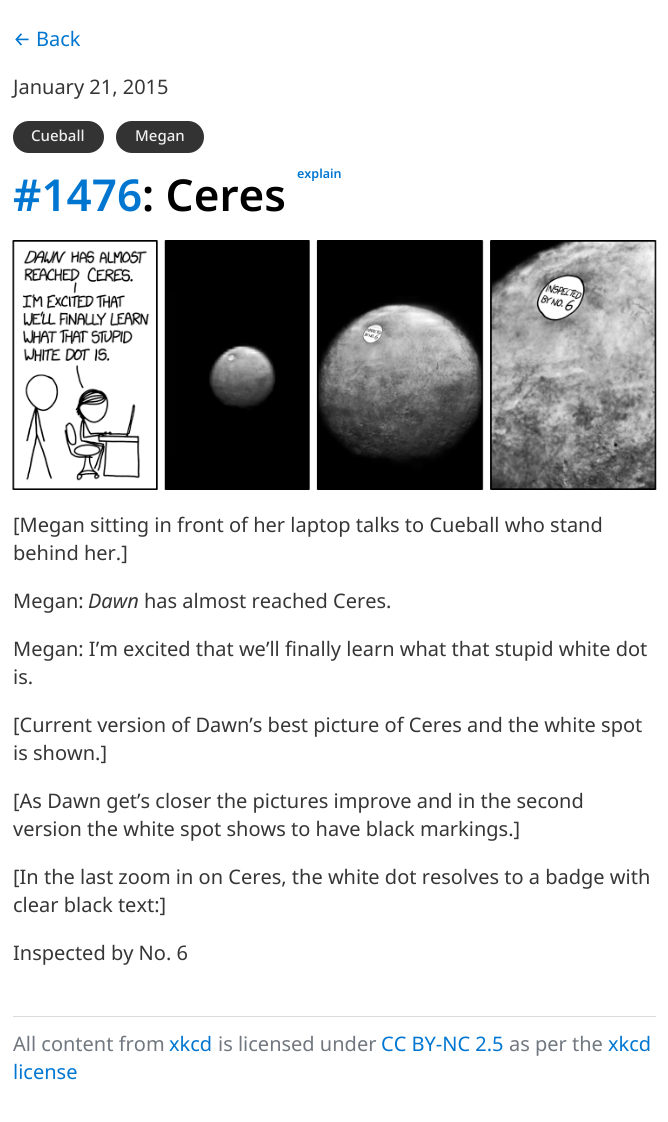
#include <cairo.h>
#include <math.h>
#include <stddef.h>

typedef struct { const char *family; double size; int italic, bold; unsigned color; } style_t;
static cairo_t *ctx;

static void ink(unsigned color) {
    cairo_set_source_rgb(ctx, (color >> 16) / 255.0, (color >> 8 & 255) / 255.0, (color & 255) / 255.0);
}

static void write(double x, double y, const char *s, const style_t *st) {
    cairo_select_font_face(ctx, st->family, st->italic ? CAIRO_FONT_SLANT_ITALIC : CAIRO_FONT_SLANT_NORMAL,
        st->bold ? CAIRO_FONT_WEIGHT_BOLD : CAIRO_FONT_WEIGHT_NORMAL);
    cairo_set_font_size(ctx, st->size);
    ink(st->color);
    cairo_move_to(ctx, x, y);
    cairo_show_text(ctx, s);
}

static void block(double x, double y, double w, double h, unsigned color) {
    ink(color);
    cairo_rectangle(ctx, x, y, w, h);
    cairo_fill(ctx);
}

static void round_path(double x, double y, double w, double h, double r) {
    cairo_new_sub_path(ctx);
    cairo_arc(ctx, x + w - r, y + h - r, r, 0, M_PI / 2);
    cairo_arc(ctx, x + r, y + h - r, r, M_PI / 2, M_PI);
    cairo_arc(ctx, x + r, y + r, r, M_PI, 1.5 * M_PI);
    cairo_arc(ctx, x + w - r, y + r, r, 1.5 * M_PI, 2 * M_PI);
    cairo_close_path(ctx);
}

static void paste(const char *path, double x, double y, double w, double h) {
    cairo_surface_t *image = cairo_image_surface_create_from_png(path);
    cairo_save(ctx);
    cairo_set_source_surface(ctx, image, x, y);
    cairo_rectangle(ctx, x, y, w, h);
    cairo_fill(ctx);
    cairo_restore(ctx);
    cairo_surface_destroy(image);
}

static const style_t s1 = {"Fira Sans", 20, 0, 0, 0x0076d1};
static const style_t s2 = {"Noto Sans", 20, 0, 0, 0x0076d1};
static const style_t s3 = {"Noto Sans", 20, 0, 0, 0x363636};
static const style_t s4 = {"Noto Sans Medium", 15, 0, 0, 0xefefef};
static const style_t s5 = {"Noto Sans SemiBold", 12.5, 0, 0, 0x0076d1};
static const style_t s6 = {"Noto Sans SemiBold", 44, 0, 0, 0x0076d1};
static const style_t s7 = {"Noto Sans SemiBold", 44, 0, 0, 0x000000};
static const style_t s8 = {"Noto Sans", 20, 1, 0, 0x363636};
static const style_t s9 = {"Noto Sans", 20, 0, 0, 0x70777f};

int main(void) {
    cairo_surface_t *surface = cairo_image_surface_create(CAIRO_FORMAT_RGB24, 668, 1122);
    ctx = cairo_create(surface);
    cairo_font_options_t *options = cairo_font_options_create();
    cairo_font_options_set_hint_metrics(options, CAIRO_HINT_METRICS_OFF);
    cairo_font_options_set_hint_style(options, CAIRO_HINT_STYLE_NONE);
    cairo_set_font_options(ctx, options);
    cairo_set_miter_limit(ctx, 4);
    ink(0xffffff);
    cairo_paint(ctx);
    write(13, 46, "←", &s1);
    write(36, 46, "Back", &s2);
    write(13, 94, "January 21, 2015", &s3);
    ink(0x333333);
    round_path(13, 121, 91, 32, 16);
    cairo_fill(ctx);
    write(31, 141, "Cueball", &s4);
    ink(0x333333);
    round_path(116, 121, 88, 32, 16);
    cairo_fill(ctx);
    write(135, 141, "Megan", &s4);
    write(297, 178, "explain", &s5);
    write(13, 211, "#1476", &s6);
    write(142, 211, ": Ceres", &s7);
    paste("pic1.png", 12, 240, 645, 250);
    write(13, 532, "[Megan sitting in front of her laptop talks to Cueball who stand", &s3);
    write(13, 560, "behind her.]", &s3);
    write(13, 608, "Megan:", &s3);
    write(88, 608, "Dawn", &s8);
    write(144, 608, "has almost reached Ceres.", &s3);
    write(13, 656, "Megan: I’m excited that we’ll finally learn what that stupid white dot", &s3);
    write(13, 684, "is.", &s3);
    write(13, 732, "[Current version of Dawn’s best picture of Ceres and the white spot", &s3);
    write(13, 760, "is shown.]", &s3);
    write(13, 808, "[As Dawn get’s closer the pictures improve and in the second", &s3);
    write(13, 836, "version the white spot shows to have black markings.]", &s3);
    write(13, 884, "[In the last zoom in on Ceres, the white dot resolves to a badge with", &s3);
    write(13, 912, "clear black text:]", &s3);
    write(13, 960, "Inspected by No. 6", &s3);
    block(13, 1016, 643, 1, 0xdbdbdb);
    write(13, 1051, "All content from", &s9);
    write(169, 1051, "xkcd", &s2);
    write(218, 1051, "is licensed under", &s9);
    write(381, 1051, "CC BY-NC 2.5", &s2);
    write(509, 1051, "as per the", &s9);
    write(608, 1051, "xkcd", &s2);
    write(13, 1079, "license", &s2);
    cairo_surface_write_to_png(surface, "screenshot.png");
    cairo_font_options_destroy(options);
    cairo_destroy(ctx);
    cairo_surface_destroy(surface);
    return 0;
}
